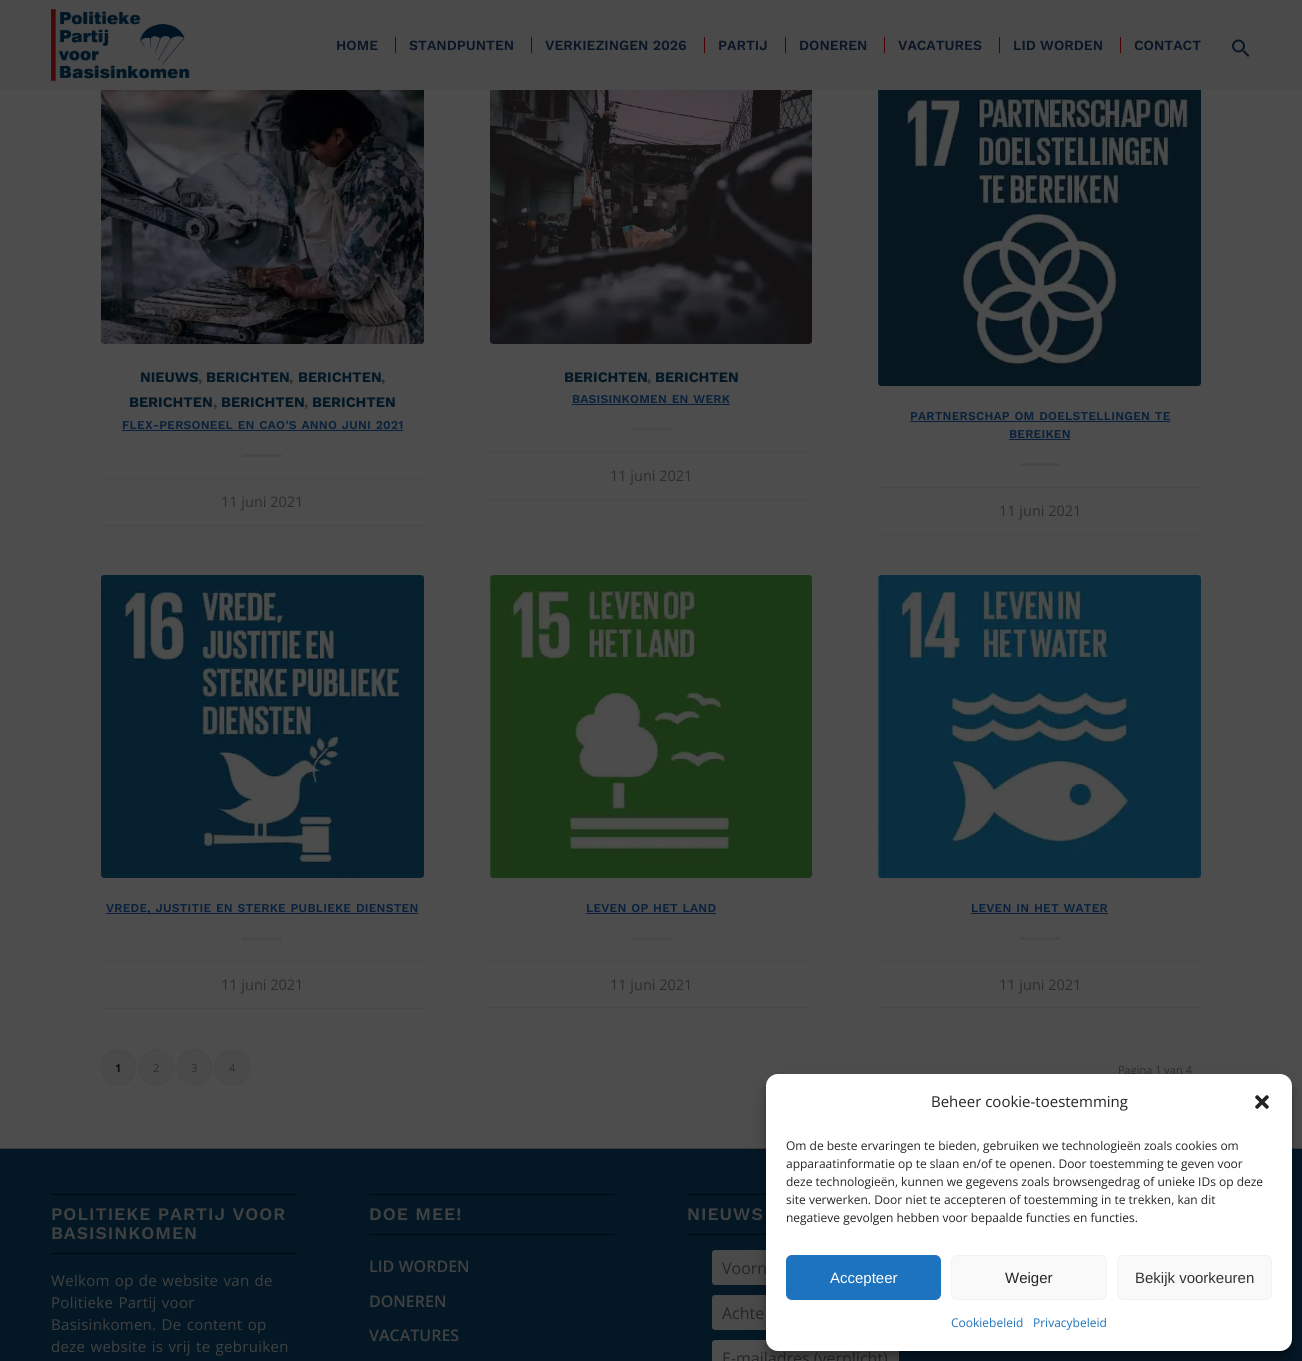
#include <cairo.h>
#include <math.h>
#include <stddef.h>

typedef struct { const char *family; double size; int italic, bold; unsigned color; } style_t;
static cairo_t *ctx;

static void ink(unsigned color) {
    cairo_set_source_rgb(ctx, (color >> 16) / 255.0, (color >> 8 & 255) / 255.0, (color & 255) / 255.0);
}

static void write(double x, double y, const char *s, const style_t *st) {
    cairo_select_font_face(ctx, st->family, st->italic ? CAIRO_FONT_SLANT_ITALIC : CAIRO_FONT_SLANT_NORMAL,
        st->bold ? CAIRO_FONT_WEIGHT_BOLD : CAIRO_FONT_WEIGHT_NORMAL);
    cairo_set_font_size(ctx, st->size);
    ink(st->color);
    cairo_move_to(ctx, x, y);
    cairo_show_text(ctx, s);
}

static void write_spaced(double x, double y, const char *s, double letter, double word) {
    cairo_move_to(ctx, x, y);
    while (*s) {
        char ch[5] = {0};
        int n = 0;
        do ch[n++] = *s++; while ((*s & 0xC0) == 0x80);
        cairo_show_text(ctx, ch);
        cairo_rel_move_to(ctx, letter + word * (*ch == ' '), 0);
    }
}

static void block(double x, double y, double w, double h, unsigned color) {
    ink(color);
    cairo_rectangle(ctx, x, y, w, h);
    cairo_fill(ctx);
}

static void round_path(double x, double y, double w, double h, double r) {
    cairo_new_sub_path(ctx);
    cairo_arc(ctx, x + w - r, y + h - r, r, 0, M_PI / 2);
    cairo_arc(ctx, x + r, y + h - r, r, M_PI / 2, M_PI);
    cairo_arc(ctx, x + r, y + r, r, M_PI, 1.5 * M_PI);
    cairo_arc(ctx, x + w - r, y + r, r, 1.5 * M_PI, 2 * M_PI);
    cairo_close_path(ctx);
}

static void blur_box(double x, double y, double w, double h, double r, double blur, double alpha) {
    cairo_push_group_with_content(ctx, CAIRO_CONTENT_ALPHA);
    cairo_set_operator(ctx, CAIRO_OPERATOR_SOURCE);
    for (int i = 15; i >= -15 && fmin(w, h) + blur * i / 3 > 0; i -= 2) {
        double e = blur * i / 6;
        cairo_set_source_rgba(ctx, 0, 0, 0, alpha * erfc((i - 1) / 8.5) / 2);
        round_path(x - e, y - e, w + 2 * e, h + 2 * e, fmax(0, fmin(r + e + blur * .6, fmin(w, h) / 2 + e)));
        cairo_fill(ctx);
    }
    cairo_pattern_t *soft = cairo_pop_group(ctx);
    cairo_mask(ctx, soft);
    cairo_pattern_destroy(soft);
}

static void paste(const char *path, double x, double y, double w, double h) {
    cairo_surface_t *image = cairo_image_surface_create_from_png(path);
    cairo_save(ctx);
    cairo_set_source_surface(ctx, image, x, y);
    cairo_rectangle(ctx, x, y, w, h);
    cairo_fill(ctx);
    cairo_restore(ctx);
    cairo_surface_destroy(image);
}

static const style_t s1 = {"Work Sans SemiBold", 14, 0, 0, 0x091525};
static const style_t s2 = {"Work Sans", 14.5, 0, 1, 0x031725};
static const style_t s3 = {"Work Sans", 14.5, 0, 1, 0x2c2c2c};
static const style_t s4 = {"Open Sans", 14.5, 0, 0, 0x2c2c2c};
static const style_t s5 = {"Open Sans", 11, 0, 1, 0x11100f};
static const style_t s6 = {"Open Sans", 11, 0, 0, 0x2c2c2c};
static const style_t s7 = {"Open Sans SemiBold", 16, 0, 0, 0x414141};
static const style_t s8 = {"Open Sans", 16, 0, 0, 0x242424};
static const style_t s9 = {"Open Sans", 15, 0, 0, 0x242424};
static const style_t s10 = {"Open Sans", 12, 0, 0, 0x242424};
static const style_t s11 = {"Liberation Sans", 15, 0, 0, 0xffffff};
static const style_t s12 = {"Liberation Sans", 15, 0, 0, 0x242424};
static const style_t s13 = {"Liberation Sans", 15, 0, 0, 0x333333};
static const style_t s14 = {"Open Sans", 12, 0, 0, 0x1e73be};

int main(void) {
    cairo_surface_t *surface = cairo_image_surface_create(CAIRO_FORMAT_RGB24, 1302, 1361);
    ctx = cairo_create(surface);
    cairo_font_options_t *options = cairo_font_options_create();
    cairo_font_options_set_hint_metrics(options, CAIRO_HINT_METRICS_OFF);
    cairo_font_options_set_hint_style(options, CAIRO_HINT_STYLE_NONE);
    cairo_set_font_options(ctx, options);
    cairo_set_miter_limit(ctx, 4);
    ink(0x4d4d4d);
    cairo_paint(ctx);
    ink(0x4a4a4a);
    round_path(101, 83, 323, 261, 3);
    cairo_fill(ctx);
    round_path(490, 83, 322, 261, 3);
    cairo_fill(ctx);
    round_path(878, 83, 323, 303, 3);
    cairo_fill(ctx);
    block(0, 0, 1302, 90, 0x4a4a4a);
    paste("pic1.png", 51, 8, 139, 74);
    write(336, 50, "HOME", &s1);
    write(409, 50, "STANDPUNTEN", &s1);
    block(395, 37, 1, 16, 0x4b0101);
    write(545, 50, "VERKIEZINGEN 2026", &s1);
    block(531, 37, 1, 16, 0x4b0101);
    write(718, 50, "PARTIJ", &s1);
    block(704, 37, 1, 16, 0x4b0101);
    write(799, 50, "DONEREN", &s1);
    block(785, 37, 1, 16, 0x4b0101);
    write(898, 50, "VACATURES", &s1);
    block(884, 37, 1, 16, 0x4b0101);
    write(1013, 50, "LID WORDEN", &s1);
    block(999, 37, 1, 16, 0x4b0101);
    write(1134, 50, "CONTACT", &s1);
    block(1120, 37, 1, 16, 0x4b0101);
    paste("pic2.png", 1232, 39, 18, 18);
    paste("pic3.png", 101, 90, 323, 254);
    write(140, 382, "NIEUWS", &s2);
    write(198, 382, ",", &s3);
    write(206, 382, "BERICHTEN", &s2);
    write(289, 382, ",", &s3);
    write(298, 382, "BERICHTEN", &s2);
    write(381, 382, ",", &s3);
    write(129, 407, "BERICHTEN", &s2);
    write(213, 407, ",", &s3);
    write(221, 407, "BERICHTEN", &s2);
    write(304, 407, ",", &s3);
    write(312, 407, "BERICHTEN", &s2);
    cairo_select_font_face(ctx, "Work Sans SemiBold", CAIRO_FONT_SLANT_NORMAL, CAIRO_FONT_WEIGHT_NORMAL);
    cairo_set_font_size(ctx, 12);
    ink(0x08203c);
    write_spaced(122, 429, "FLEX-PERSONEEL EN CAO’S ANNO JUNI 2021", 0.25, 0.75);
    block(122, 430, 281, 1, 0x08203c);
    block(242, 454, 40, 3, 0x474747);
    block(101, 478, 323, 1, 0x474747);
    block(101, 525, 323, 1, 0x474747);
    write(221, 507, "11 juni 2021", &s4);
    paste("pic4.png", 490, 90, 322, 254);
    write(564, 382, "BERICHTEN", &s2);
    write(647, 382, ",", &s3);
    write(655, 382, "BERICHTEN", &s2);
    cairo_select_font_face(ctx, "Work Sans SemiBold", CAIRO_FONT_SLANT_NORMAL, CAIRO_FONT_WEIGHT_NORMAL);
    cairo_set_font_size(ctx, 12);
    ink(0x08203c);
    write_spaced(572, 403, "BASISINKOMEN EN WERK", 0.25, 0.75);
    block(572, 404, 158, 1, 0x08203c);
    block(631, 428, 40, 3, 0x474747);
    block(490, 452, 322, 1, 0x474747);
    block(490, 499, 322, 1, 0x474747);
    write(610, 481, "11 juni 2021", &s4);
    paste("pic5.png", 878, 90, 323, 296);
    cairo_select_font_face(ctx, "Work Sans SemiBold", CAIRO_FONT_SLANT_NORMAL, CAIRO_FONT_WEIGHT_NORMAL);
    cairo_set_font_size(ctx, 12);
    ink(0x08203c);
    write_spaced(910, 420, "PARTNERSCHAP OM DOELSTELLINGEN TE", 0.25, 0.75);
    block(910, 421, 260, 1, 0x08203c);
    write_spaced(1009, 438, "BEREIKEN", 0.25, 0);
    block(1009, 439, 61, 1, 0x08203c);
    block(1020, 463, 40, 3, 0x474747);
    block(878, 487, 323, 1, 0x474747);
    block(878, 534, 323, 1, 0x474747);
    write(999, 516, "11 juni 2021", &s4);
    ink(0x4a4a4a);
    round_path(101, 575, 323, 303, 3);
    cairo_fill(ctx);
    paste("pic6.png", 101, 575, 323, 303);
    block(106, 913, 312, 1, 0x08203c);
    cairo_select_font_face(ctx, "Work Sans SemiBold", CAIRO_FONT_SLANT_NORMAL, CAIRO_FONT_WEIGHT_NORMAL);
    cairo_set_font_size(ctx, 12);
    write_spaced(106, 912, "VREDE, JUSTITIE EN STERKE PUBLIEKE DIENSTEN", 0.25, 0.75);
    block(242, 937, 40, 3, 0x474747);
    block(101, 961, 323, 1, 0x474747);
    block(101, 1008, 323, 1, 0x474747);
    write(221, 990, "11 juni 2021", &s4);
    ink(0x4a4a4a);
    round_path(490, 575, 322, 303, 3);
    cairo_fill(ctx);
    paste("pic7.png", 490, 575, 322, 303);
    cairo_select_font_face(ctx, "Work Sans SemiBold", CAIRO_FONT_SLANT_NORMAL, CAIRO_FONT_WEIGHT_NORMAL);
    cairo_set_font_size(ctx, 12);
    ink(0x08203c);
    write_spaced(586, 912, "LEVEN OP HET LAND", 0.25, 0.75);
    block(586, 913, 130, 1, 0x08203c);
    block(631, 937, 40, 3, 0x474747);
    block(490, 961, 322, 1, 0x474747);
    block(490, 1007, 322, 1, 0x474747);
    write(610, 990, "11 juni 2021", &s4);
    ink(0x4a4a4a);
    round_path(878, 575, 323, 303, 3);
    cairo_fill(ctx);
    paste("pic8.png", 878, 575, 323, 303);
    cairo_select_font_face(ctx, "Work Sans SemiBold", CAIRO_FONT_SLANT_NORMAL, CAIRO_FONT_WEIGHT_NORMAL);
    cairo_set_font_size(ctx, 12);
    ink(0x08203c);
    write_spaced(971, 912, "LEVEN IN HET WATER", 0.25, 0.75);
    block(971, 913, 137, 1, 0x08203c);
    block(1020, 937, 40, 3, 0x474747);
    block(878, 961, 323, 1, 0x474747);
    block(878, 1007, 323, 1, 0x474747);
    write(999, 990, "11 juni 2021", &s4);
    ink(0x000000);
    blur_box(101, 1050, 35, 35, 17.5, 0.5, 0.2);
    ink(0x4a4a4a);
    cairo_arc(ctx, 118.5, 1067.5, 17.5, 0, 2 * M_PI);
    cairo_fill(ctx);
    write(115, 1072, "1", &s5);
    ink(0x000000);
    blur_box(139, 1050, 35, 35, 17.5, 0.5, 0.2);
    ink(0x4a4a4a);
    cairo_arc(ctx, 156.5, 1067.5, 17.5, 0, 2 * M_PI);
    cairo_fill(ctx);
    write(153, 1072, "2", &s6);
    ink(0x000000);
    blur_box(177, 1050, 35, 35, 17.5, 0.5, 0.2);
    ink(0x4a4a4a);
    cairo_arc(ctx, 194.5, 1067.5, 17.5, 0, 2 * M_PI);
    cairo_fill(ctx);
    write(191, 1072, "3", &s6);
    ink(0x000000);
    blur_box(215, 1050, 35, 35, 17.5, 0.5, 0.2);
    ink(0x4a4a4a);
    cairo_arc(ctx, 232.5, 1067.5, 17.5, 0, 2 * M_PI);
    cairo_fill(ctx);
    write(229, 1072, "4", &s6);
    write(1118, 1074, "Pagina 1 van 4", &s6);
    block(0, 1149, 1302, 212, 0x031725);
    block(0, 1148, 1302, 1, 0x35383b);
    block(51, 1194, 246, 1, 0x000911);
    block(51, 1253, 246, 1, 0x000911);
    cairo_select_font_face(ctx, "Work Sans SemiBold", CAIRO_FONT_SLANT_NORMAL, CAIRO_FONT_WEIGHT_NORMAL);
    cairo_set_font_size(ctx, 17.6);
    ink(0x414141);
    write_spaced(51, 1220, "POLITIEKE PARTIJ VOOR", 1, 0);
    write_spaced(51, 1239, "BASISINKOMEN", 1, 0);
    cairo_select_font_face(ctx, "Open Sans", CAIRO_FONT_SLANT_NORMAL, CAIRO_FONT_WEIGHT_NORMAL);
    cairo_set_font_size(ctx, 15);
    write_spaced(51, 1286, "Welkom op de website van de", 0.3, 1);
    write_spaced(51, 1308, "Politieke Partij voor", 0.3, 1);
    write_spaced(51, 1330, "Basisinkomen. De content op", 0.3, 1);
    write_spaced(51, 1352, "deze website is vrij te gebruiken", 0.3, 1);
    block(369, 1194, 246, 1, 0x000911);
    block(369, 1234, 246, 1, 0x000911);
    cairo_select_font_face(ctx, "Work Sans SemiBold", CAIRO_FONT_SLANT_NORMAL, CAIRO_FONT_WEIGHT_NORMAL);
    cairo_set_font_size(ctx, 17.6);
    ink(0x414141);
    write_spaced(369, 1220, "DOE MEE!", 1, 0);
    write(369, 1272, "LID WORDEN", &s7);
    write(369, 1307, "DONEREN", &s7);
    write(369, 1341, "VACATURES", &s7);
    block(687, 1194, 79, 1, 0x000911);
    block(687, 1234, 79, 1, 0x000911);
    cairo_select_font_face(ctx, "Work Sans SemiBold", CAIRO_FONT_SLANT_NORMAL, CAIRO_FONT_WEIGHT_NORMAL);
    cairo_set_font_size(ctx, 17.6);
    ink(0x414141);
    write_spaced(687, 1220, "NIEUWS", 1, 0);
    ink(0x4a4a4a);
    round_path(712, 1250, 187, 35, 3);
    cairo_fill(ctx);
    write(722, 1274, "Voorn", &s8);
    ink(0x4a4a4a);
    round_path(712, 1295, 187, 35, 3);
    cairo_fill(ctx);
    write(722, 1319, "Achte", &s8);
    ink(0x4d4d4d);
    round_path(712, 1340, 187, 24, 3);
    cairo_fill(ctx);
    write(722, 1364, "E-mailadres (verplicht)", &s8);
    ink(0x000000);
    blur_box(766, 1080, 526, 277, 12, 3, 0.23);
    blur_box(766, 1084, 526, 277, 12, 10, 0.19);
    ink(0xffffff);
    round_path(766, 1074, 526, 277, 12);
    cairo_fill(ctx);
    write(931, 1107, "Beheer cookie-toestemming", &s9);
    paste("pic9.png", 1255, 1095, 14, 14);
    write(786, 1150, "Om de beste ervaringen te bieden, gebruiken we technologieën zoals cookies om", &s10);
    write(786, 1168, "apparaatinformatie op te slaan en/of te openen. Door toestemming te geven voor", &s10);
    write(786, 1186, "deze technologieën, kunnen we gegevens zoals browsengedrag of unieke IDs op deze", &s10);
    write(786, 1204, "site verwerken. Door niet te accepteren of toestemming in te trekken, kan dit", &s10);
    write(786, 1222, "negatieve gevolgen hebben voor bepaalde functies en functies.", &s10);
    ink(0x1e73be);
    round_path(786.5, 1255.5, 154, 44, 5.5);
    cairo_fill_preserve(ctx);
    cairo_set_line_width(ctx, 1);
    cairo_stroke(ctx);
    write(830, 1283, "Accepteer", &s11);
    ink(0xf9f9f9);
    round_path(951.5, 1255.5, 155, 44, 5.5);
    cairo_fill_preserve(ctx);
    ink(0xf2f2f2);
    cairo_stroke(ctx);
    write(1005, 1283, "Weiger", &s12);
    ink(0xf9f9f9);
    round_path(1117.5, 1255.5, 154, 44, 5.5);
    cairo_fill_preserve(ctx);
    ink(0xf2f2f2);
    cairo_stroke(ctx);
    write(1135, 1283, "Bekijk voorkeuren", &s13);
    write(951, 1327, "Cookiebeleid", &s14);
    write(1033, 1327, "Privacybeleid", &s14);
    cairo_surface_write_to_png(surface, "screenshot.png");
    cairo_font_options_destroy(options);
    cairo_destroy(ctx);
    cairo_surface_destroy(surface);
    return 0;
}
